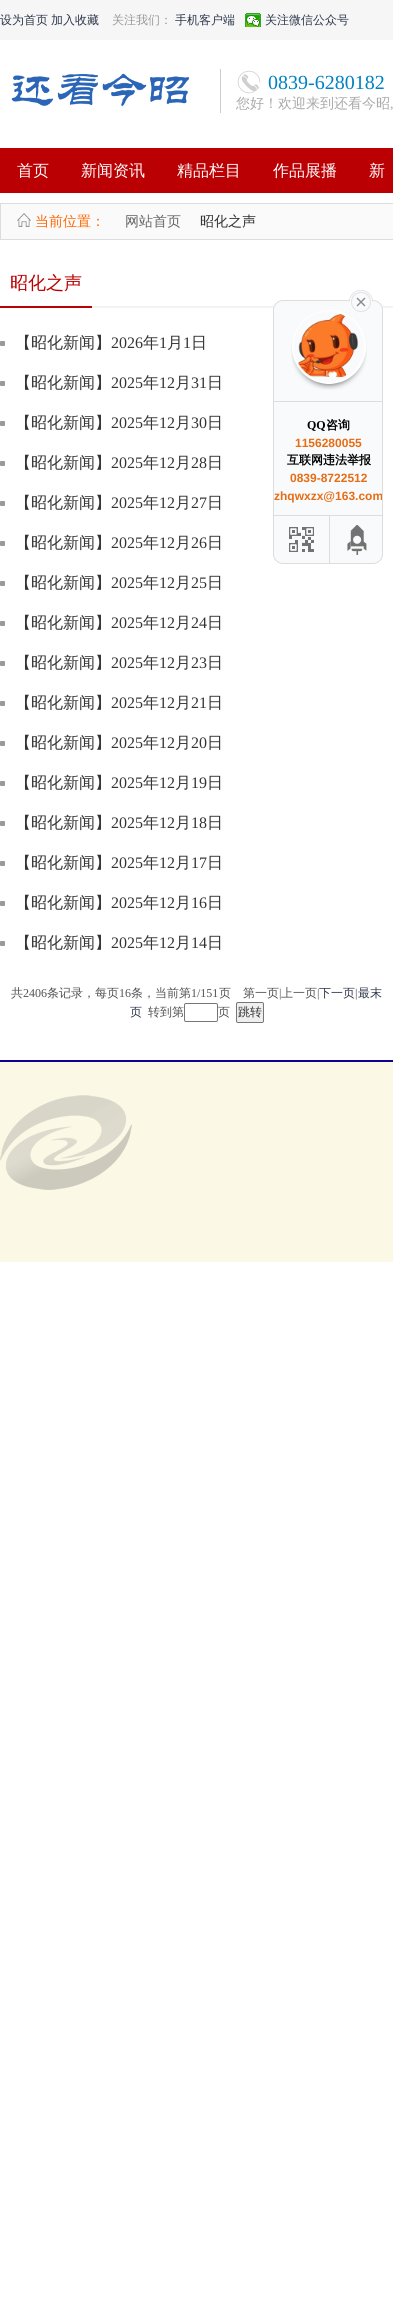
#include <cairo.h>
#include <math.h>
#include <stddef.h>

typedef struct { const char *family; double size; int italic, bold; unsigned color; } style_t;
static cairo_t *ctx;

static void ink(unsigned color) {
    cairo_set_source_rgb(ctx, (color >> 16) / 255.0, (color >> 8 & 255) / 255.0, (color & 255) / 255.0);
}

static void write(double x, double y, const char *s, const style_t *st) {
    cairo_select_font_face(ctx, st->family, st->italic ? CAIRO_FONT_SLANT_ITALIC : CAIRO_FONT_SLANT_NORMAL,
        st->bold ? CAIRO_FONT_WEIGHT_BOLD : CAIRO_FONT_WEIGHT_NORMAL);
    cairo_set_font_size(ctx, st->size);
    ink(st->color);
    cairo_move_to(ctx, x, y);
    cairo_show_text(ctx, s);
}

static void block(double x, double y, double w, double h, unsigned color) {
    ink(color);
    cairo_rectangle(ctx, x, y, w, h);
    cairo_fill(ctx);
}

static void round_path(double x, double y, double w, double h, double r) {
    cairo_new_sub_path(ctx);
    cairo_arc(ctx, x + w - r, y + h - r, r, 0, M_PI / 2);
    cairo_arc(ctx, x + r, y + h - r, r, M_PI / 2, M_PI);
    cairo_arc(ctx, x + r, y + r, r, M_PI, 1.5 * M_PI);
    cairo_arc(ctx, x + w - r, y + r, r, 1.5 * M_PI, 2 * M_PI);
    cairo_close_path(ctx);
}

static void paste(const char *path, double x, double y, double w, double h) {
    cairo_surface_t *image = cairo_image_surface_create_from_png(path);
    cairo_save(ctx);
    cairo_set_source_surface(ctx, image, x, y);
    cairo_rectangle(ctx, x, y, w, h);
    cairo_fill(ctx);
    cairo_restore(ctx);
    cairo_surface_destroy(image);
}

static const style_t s1 = {"WenQuanYi Zen Hei Medium", 12, 0, 0, 0x2d374b};
static const style_t s2 = {"WenQuanYi Zen Hei Medium", 12, 0, 0, 0x999999};
static const style_t s3 = {"Liberation Serif", 20, 0, 0, 0x0081c3};
static const style_t s4 = {"WenQuanYi Zen Hei Medium", 14, 0, 0, 0xaaaaaa};
static const style_t s5 = {"Liberation Serif", 14, 0, 0, 0xaaaaaa};
static const style_t s6 = {"WenQuanYi Zen Hei Medium", 16, 0, 0, 0xffffff};
static const style_t s7 = {"Liberation Serif", 12, 0, 1, 0x000000};
static const style_t s8 = {"WenQuanYi Zen Hei", 12, 0, 1, 0x000000};
static const style_t s9 = {"Liberation Sans", 12, 0, 1, 0xe66d15};
static const style_t s10 = {"WenQuanYi Zen Hei Medium", 14, 0, 0, 0xff6600};
static const style_t s11 = {"WenQuanYi Zen Hei Medium", 14, 0, 0, 0x666666};
static const style_t s12 = {"WenQuanYi Zen Hei Medium", 14, 0, 0, 0x333333};
static const style_t s13 = {"WenQuanYi Zen Hei Medium", 18, 0, 0, 0xba0202};
static const style_t s14 = {"WenQuanYi Zen Hei Medium", 16, 0, 0, 0x333333};
static const style_t s15 = {"Liberation Serif", 16, 0, 0, 0x333333};
static const style_t s16 = {"WenQuanYi Zen Hei Medium", 12, 0, 0, 0x525252};
static const style_t s17 = {"Liberation Serif", 12, 0, 0, 0x525252};
static const style_t s18 = {"WenQuanYi Zen Hei Medium", 12, 0, 0, 0x333333};

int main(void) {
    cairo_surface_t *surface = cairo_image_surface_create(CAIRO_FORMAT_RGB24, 393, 2303);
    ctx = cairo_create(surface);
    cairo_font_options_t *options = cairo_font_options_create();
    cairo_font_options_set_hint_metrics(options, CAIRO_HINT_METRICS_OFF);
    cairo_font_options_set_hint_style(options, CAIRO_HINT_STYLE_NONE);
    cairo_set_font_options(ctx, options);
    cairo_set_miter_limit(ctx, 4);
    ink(0xffffff);
    cairo_paint(ctx);
    block(0, 0, 393, 40, 0xf6f6f6);
    write(0, 24, "设为首页", &s1);
    write(51, 24, "加入收藏", &s1);
    write(112, 24, "关注我们：", &s2);
    write(175, 24, "手机客户端", &s1);
    paste("pic1.png", 245, 13, 16, 14);
    write(265, 24, "关注微信公众号", &s1);
    paste("pic2.png", 11, 73, 179, 34);
    block(220, 69, 1, 44, 0xcfcfcf);
    paste("pic3.png", 237, 70, 24, 24);
    write(268, 89, "0839-6280182", &s3);
    write(236, 108, "您好！欢迎来到还看今昭", &s4);
    write(390, 108, ",", &s5);
    block(0, 148, 393, 45, 0xbb0003);
    write(17, 176, "首页", &s6);
    write(81, 176, "新闻资讯", &s6);
    write(177, 176, "精品栏目", &s6);
    write(273, 176, "作品展播", &s6);
    write(369, 176, "新", &s6);
    block(92, 306, 301, 2, 0xf3f3f3);
    ink(0xf9fafb);
    round_path(273.5, 300.5, 109, 263, 9.5);
    cairo_fill_preserve(ctx);
    ink(0xdddddd);
    cairo_set_line_width(ctx, 1);
    cairo_stroke(ctx);
    paste("pic6.png", 298, 314, 60, 63);
    paste("pic5.png", 291, 310, 76, 80);
    paste("pic4.png", 349, 290, 24, 22);
    block(274, 401, 109, 1, 0xdddddd);
    block(274, 515, 109, 1, 0xdddddd);
    write(307, 429, "QQ", &s7);
    write(326, 429, "咨询", &s8);
    write(295, 447, "1156280055", &s9);
    write(287, 464, "互联网违法举报", &s8);
    write(290, 482, "0839-8722512", &s9);
    write(274, 500, "zhqwxzx@163.com", &s9);
    paste("pic7.png", 289, 527, 25, 25);
    block(329, 516, 1, 47, 0xdddddd);
    paste("pic8.png", 347, 525, 20, 30);
    ink(0xfafafa);
    cairo_rectangle(ctx, 0.5, 203.5, 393, 36);
    cairo_fill_preserve(ctx);
    ink(0xdddddd);
    cairo_stroke(ctx);
    paste("pic9.png", 17, 213, 14, 14);
    write(35, 226, "当前位置：", &s10);
    write(125, 226, "网站首页", &s11);
    write(200, 226, "昭化之声", &s12);
    block(0, 306, 92, 2, 0xba0202);
    write(10, 289, "昭化之声", &s13);
    ink(0x999999);
    round_path(0, 341, 5, 5, 1);
    cairo_fill(ctx);
    write(15, 348, "【昭化新闻】", &s14);
    write(111, 348, "2026", &s15);
    write(143, 348, "年", &s14);
    write(159, 348, "1", &s15);
    write(167, 348, "月", &s14);
    write(183, 348, "1", &s15);
    write(191, 348, "日", &s14);
    ink(0x999999);
    round_path(0, 381, 5, 5, 1);
    cairo_fill(ctx);
    write(15, 388, "【昭化新闻】", &s14);
    write(111, 388, "2025", &s15);
    write(143, 388, "年", &s14);
    write(159, 388, "12", &s15);
    write(175, 388, "月", &s14);
    write(191, 388, "31", &s15);
    write(207, 388, "日", &s14);
    ink(0x999999);
    round_path(0, 421, 5, 5, 1);
    cairo_fill(ctx);
    write(15, 428, "【昭化新闻】", &s14);
    write(111, 428, "2025", &s15);
    write(143, 428, "年", &s14);
    write(159, 428, "12", &s15);
    write(175, 428, "月", &s14);
    write(191, 428, "30", &s15);
    write(207, 428, "日", &s14);
    ink(0x999999);
    round_path(0, 461, 5, 5, 1);
    cairo_fill(ctx);
    write(15, 468, "【昭化新闻】", &s14);
    write(111, 468, "2025", &s15);
    write(143, 468, "年", &s14);
    write(159, 468, "12", &s15);
    write(175, 468, "月", &s14);
    write(191, 468, "28", &s15);
    write(207, 468, "日", &s14);
    ink(0x999999);
    round_path(0, 501, 5, 5, 1);
    cairo_fill(ctx);
    write(15, 508, "【昭化新闻】", &s14);
    write(111, 508, "2025", &s15);
    write(143, 508, "年", &s14);
    write(159, 508, "12", &s15);
    write(175, 508, "月", &s14);
    write(191, 508, "27", &s15);
    write(207, 508, "日", &s14);
    ink(0x999999);
    round_path(0, 541, 5, 5, 1);
    cairo_fill(ctx);
    write(15, 548, "【昭化新闻】", &s14);
    write(111, 548, "2025", &s15);
    write(143, 548, "年", &s14);
    write(159, 548, "12", &s15);
    write(175, 548, "月", &s14);
    write(191, 548, "26", &s15);
    write(207, 548, "日", &s14);
    ink(0x999999);
    round_path(0, 581, 5, 5, 1);
    cairo_fill(ctx);
    write(15, 588, "【昭化新闻】", &s14);
    write(111, 588, "2025", &s15);
    write(143, 588, "年", &s14);
    write(159, 588, "12", &s15);
    write(175, 588, "月", &s14);
    write(191, 588, "25", &s15);
    write(207, 588, "日", &s14);
    ink(0x999999);
    round_path(0, 621, 5, 5, 1);
    cairo_fill(ctx);
    write(15, 628, "【昭化新闻】", &s14);
    write(111, 628, "2025", &s15);
    write(143, 628, "年", &s14);
    write(159, 628, "12", &s15);
    write(175, 628, "月", &s14);
    write(191, 628, "24", &s15);
    write(207, 628, "日", &s14);
    ink(0x999999);
    round_path(0, 661, 5, 5, 1);
    cairo_fill(ctx);
    write(15, 668, "【昭化新闻】", &s14);
    write(111, 668, "2025", &s15);
    write(143, 668, "年", &s14);
    write(159, 668, "12", &s15);
    write(175, 668, "月", &s14);
    write(191, 668, "23", &s15);
    write(207, 668, "日", &s14);
    ink(0x999999);
    round_path(0, 701, 5, 5, 1);
    cairo_fill(ctx);
    write(15, 708, "【昭化新闻】", &s14);
    write(111, 708, "2025", &s15);
    write(143, 708, "年", &s14);
    write(159, 708, "12", &s15);
    write(175, 708, "月", &s14);
    write(191, 708, "21", &s15);
    write(207, 708, "日", &s14);
    ink(0x999999);
    round_path(0, 741, 5, 5, 1);
    cairo_fill(ctx);
    write(15, 748, "【昭化新闻】", &s14);
    write(111, 748, "2025", &s15);
    write(143, 748, "年", &s14);
    write(159, 748, "12", &s15);
    write(175, 748, "月", &s14);
    write(191, 748, "20", &s15);
    write(207, 748, "日", &s14);
    ink(0x999999);
    round_path(0, 781, 5, 5, 1);
    cairo_fill(ctx);
    write(15, 788, "【昭化新闻】", &s14);
    write(111, 788, "2025", &s15);
    write(143, 788, "年", &s14);
    write(159, 788, "12", &s15);
    write(175, 788, "月", &s14);
    write(191, 788, "19", &s15);
    write(207, 788, "日", &s14);
    ink(0x999999);
    round_path(0, 821, 5, 5, 1);
    cairo_fill(ctx);
    write(15, 828, "【昭化新闻】", &s14);
    write(111, 828, "2025", &s15);
    write(143, 828, "年", &s14);
    write(159, 828, "12", &s15);
    write(175, 828, "月", &s14);
    write(191, 828, "18", &s15);
    write(207, 828, "日", &s14);
    ink(0x999999);
    round_path(0, 861, 5, 5, 1);
    cairo_fill(ctx);
    write(15, 868, "【昭化新闻】", &s14);
    write(111, 868, "2025", &s15);
    write(143, 868, "年", &s14);
    write(159, 868, "12", &s15);
    write(175, 868, "月", &s14);
    write(191, 868, "17", &s15);
    write(207, 868, "日", &s14);
    ink(0x999999);
    round_path(0, 901, 5, 5, 1);
    cairo_fill(ctx);
    write(15, 908, "【昭化新闻】", &s14);
    write(111, 908, "2025", &s15);
    write(143, 908, "年", &s14);
    write(159, 908, "12", &s15);
    write(175, 908, "月", &s14);
    write(191, 908, "16", &s15);
    write(207, 908, "日", &s14);
    ink(0x999999);
    round_path(0, 941, 5, 5, 1);
    cairo_fill(ctx);
    write(15, 948, "【昭化新闻】", &s14);
    write(111, 948, "2025", &s15);
    write(143, 948, "年", &s14);
    write(159, 948, "12", &s15);
    write(175, 948, "月", &s14);
    write(191, 948, "14", &s15);
    write(207, 948, "日", &s14);
    write(11, 997, "共", &s16);
    write(23, 997, "2406", &s17);
    write(47, 997, "条记录，每页", &s16);
    write(119, 997, "16", &s17);
    write(131, 997, "条，当前第", &s16);
    write(191, 997, "1/151", &s17);
    write(219, 997, "页", &s16);
    write(243, 997, "第一页", &s16);
    write(279, 997, "|", &s17);
    write(281, 997, "上一页", &s16);
    write(317, 997, "|", &s17);
    write(319, 997, "下一页", &s1);
    write(355, 997, "|", &s17);
    write(358, 997, "最末", &s1);
    write(130, 1016, "页", &s1);
    write(148, 1016, "转到第", &s16);
    round_path(184.5, 1003.5, 33, 18, 1.5);
    ink(0x767676);
    cairo_stroke(ctx);
    write(218, 1016, "页", &s16);
    ink(0xefefef);
    round_path(236.5, 1002.5, 27, 20, 1.5);
    cairo_fill_preserve(ctx);
    ink(0x767676);
    cairo_stroke(ctx);
    write(238, 1016, "跳转", &s18);
    block(0, 1062, 393, 200, 0xfbf8e5);
    block(0, 1060, 393, 2, 0x0f0096);
    paste("pic10.png", 0, 1095, 132, 95);
    cairo_surface_write_to_png(surface, "screenshot.png");
    cairo_font_options_destroy(options);
    cairo_destroy(ctx);
    cairo_surface_destroy(surface);
    return 0;
}
